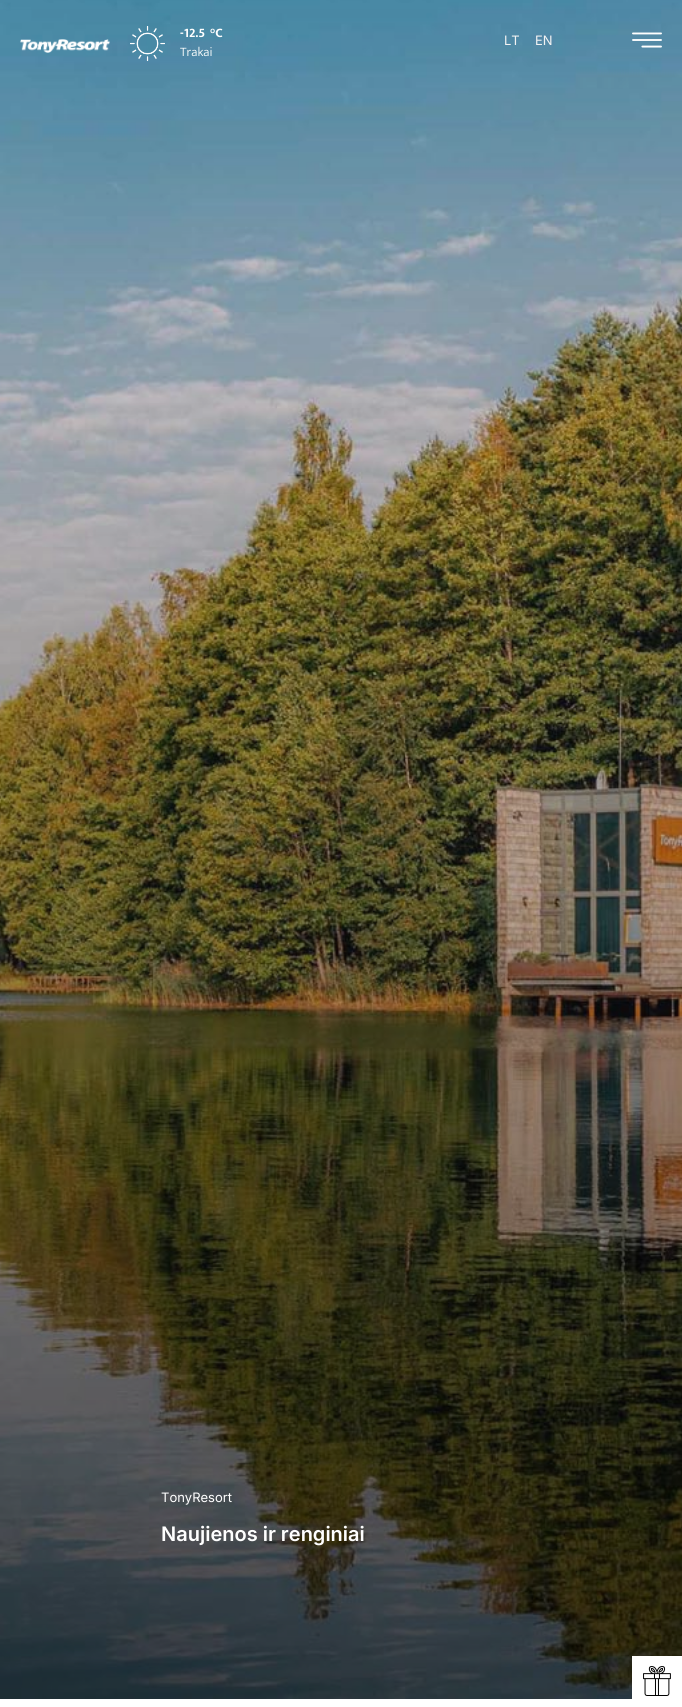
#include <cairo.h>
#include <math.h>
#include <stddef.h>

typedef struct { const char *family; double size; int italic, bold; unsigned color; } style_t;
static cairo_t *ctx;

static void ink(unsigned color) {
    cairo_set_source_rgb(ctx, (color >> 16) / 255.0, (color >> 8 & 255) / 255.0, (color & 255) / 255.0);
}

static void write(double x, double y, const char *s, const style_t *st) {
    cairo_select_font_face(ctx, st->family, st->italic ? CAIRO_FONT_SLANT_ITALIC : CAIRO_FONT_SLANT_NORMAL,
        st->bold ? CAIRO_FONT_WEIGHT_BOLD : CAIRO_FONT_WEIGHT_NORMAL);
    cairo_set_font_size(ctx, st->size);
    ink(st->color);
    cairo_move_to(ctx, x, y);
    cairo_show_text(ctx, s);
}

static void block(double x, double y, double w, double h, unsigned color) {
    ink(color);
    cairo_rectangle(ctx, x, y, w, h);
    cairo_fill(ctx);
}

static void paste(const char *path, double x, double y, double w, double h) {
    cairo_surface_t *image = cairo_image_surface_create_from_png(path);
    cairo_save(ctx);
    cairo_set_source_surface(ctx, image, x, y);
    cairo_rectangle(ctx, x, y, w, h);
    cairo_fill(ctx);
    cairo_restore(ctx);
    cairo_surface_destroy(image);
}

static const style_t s1 = {"Mukta", 13, 0, 1, 0xffffff};
static const style_t s2 = {"Mukta Light", 13, 0, 0, 0xffffff};
static const style_t s3 = {"Inter", 13, 0, 0, 0xf3f3f3};
static const style_t s4 = {"Inter", 13, 0, 0, 0xffffff};
static const style_t s5 = {"Inter SemiBold", 20, 0, 0, 0xffffff};

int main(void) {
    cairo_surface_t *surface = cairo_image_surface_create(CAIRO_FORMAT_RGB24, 682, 1707);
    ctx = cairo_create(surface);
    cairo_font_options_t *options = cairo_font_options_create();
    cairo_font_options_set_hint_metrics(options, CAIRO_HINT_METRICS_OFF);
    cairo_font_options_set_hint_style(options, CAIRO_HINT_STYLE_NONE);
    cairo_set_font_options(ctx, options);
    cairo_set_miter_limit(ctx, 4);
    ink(0xffffff);
    cairo_paint(ctx);
    paste("pic4.png", 0, 0, 682, 1699);
    paste("pic1.png", 20, 39, 90, 14);
    paste("pic2.png", 130, 26, 35, 35);
    write(180, 37, "-12.5", &s1);
    write(210, 37, "°C", &s1);
    write(180, 56, "Trakai", &s2);
    write(504, 45, "LT", &s3);
    write(535, 45, "EN", &s3);
    paste("pic3.png", 632, 32, 30, 16);
    write(161, 1502, "TonyResort", &s4);
    write(161, 1541, "Naujienos ir renginiai", &s5);
    block(632, 1656, 50, 43, 0xffffff);
    paste("pic5.png", 643, 1666, 28, 30);
    cairo_surface_write_to_png(surface, "screenshot.png");
    cairo_font_options_destroy(options);
    cairo_destroy(ctx);
    cairo_surface_destroy(surface);
    return 0;
}
